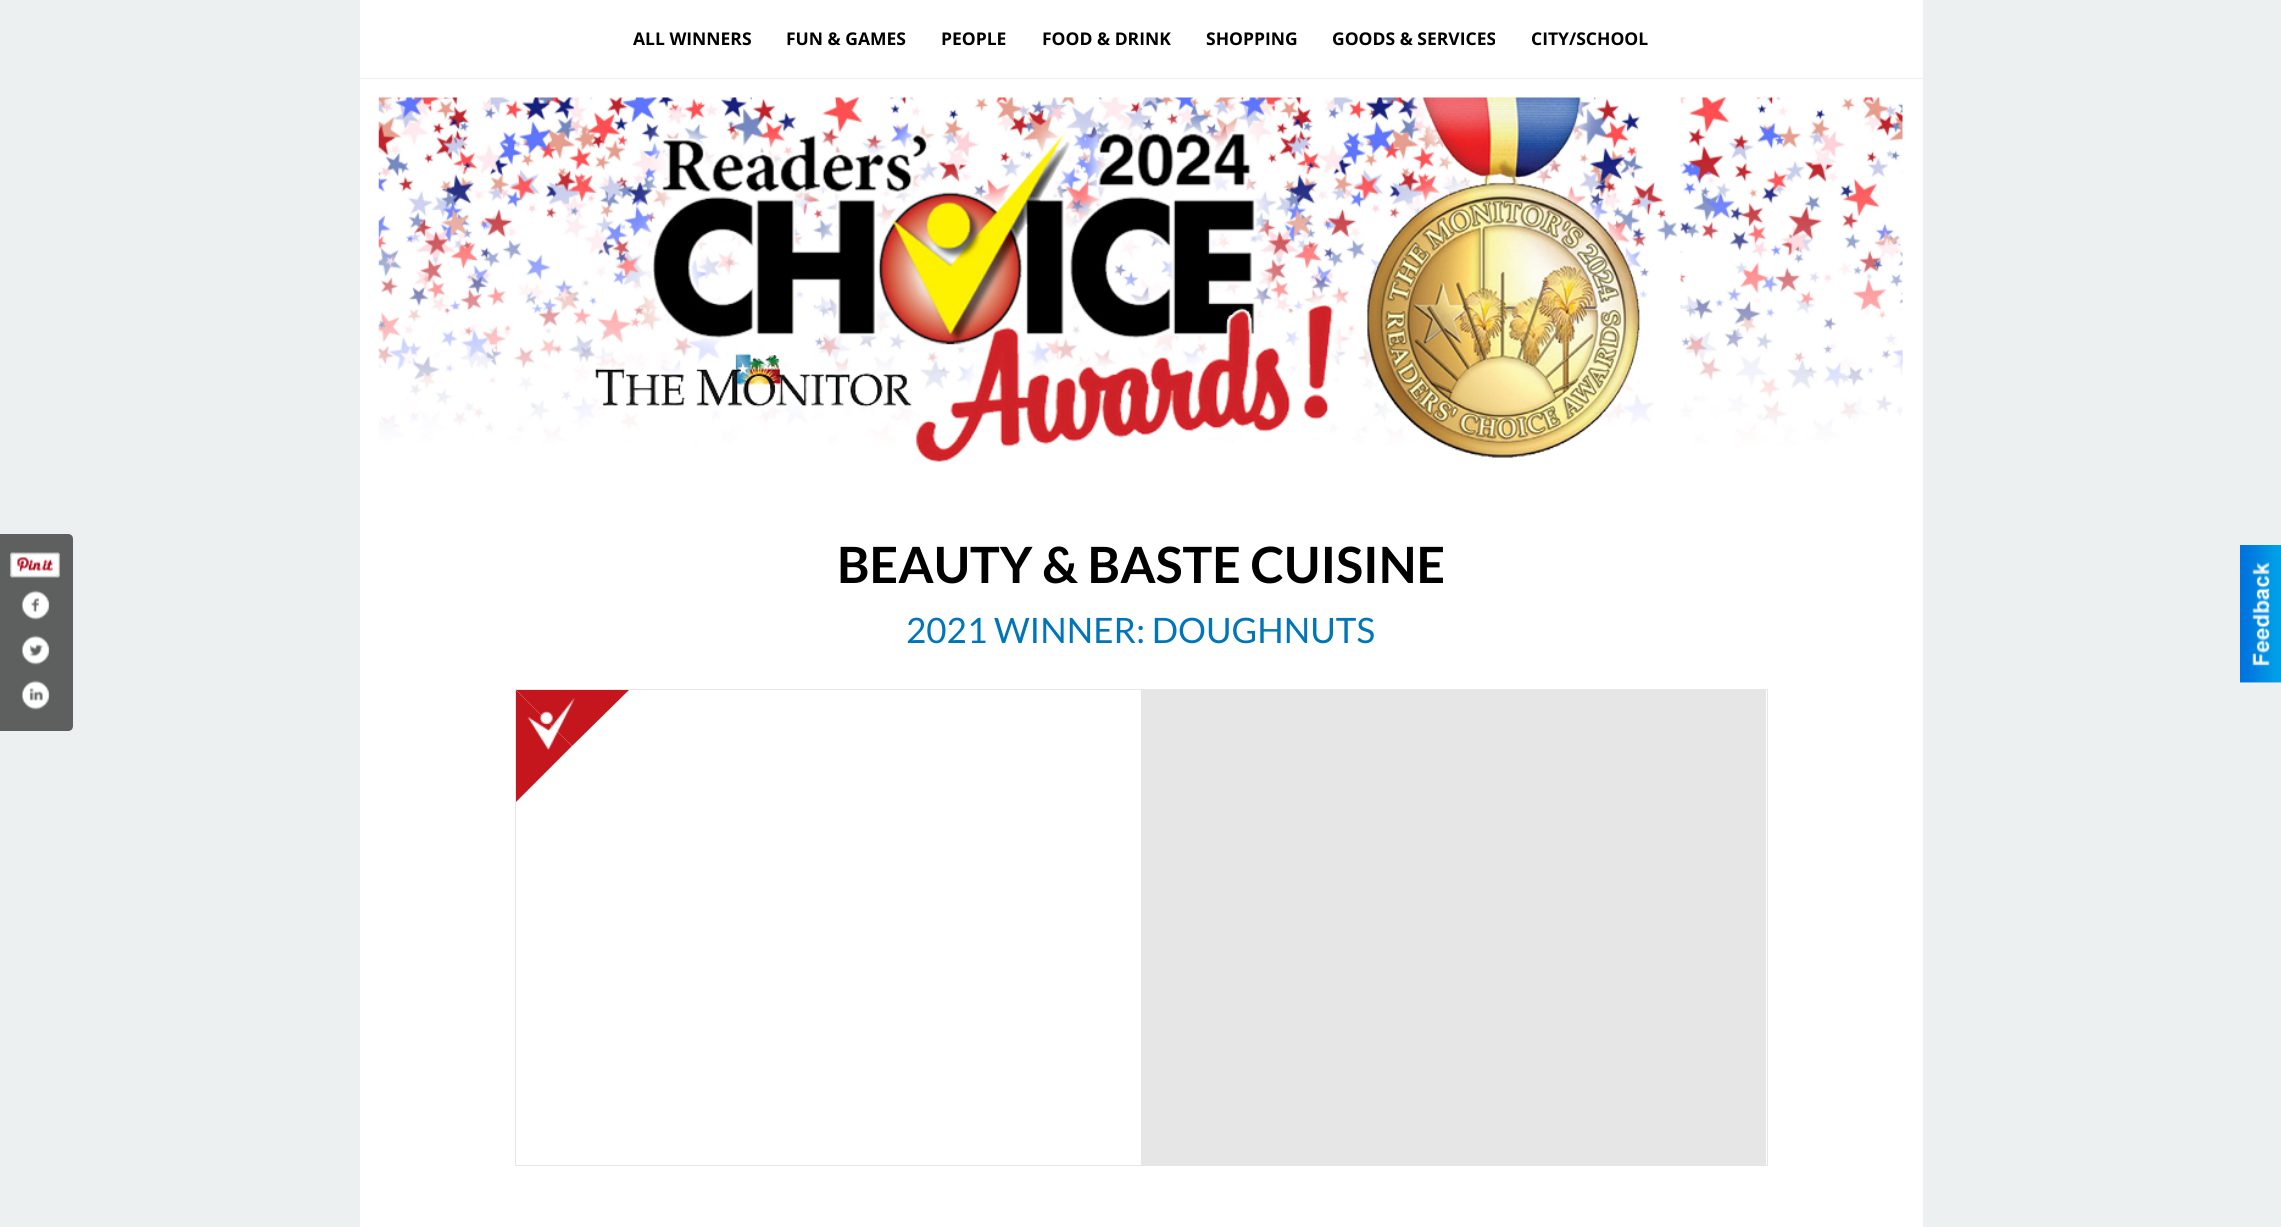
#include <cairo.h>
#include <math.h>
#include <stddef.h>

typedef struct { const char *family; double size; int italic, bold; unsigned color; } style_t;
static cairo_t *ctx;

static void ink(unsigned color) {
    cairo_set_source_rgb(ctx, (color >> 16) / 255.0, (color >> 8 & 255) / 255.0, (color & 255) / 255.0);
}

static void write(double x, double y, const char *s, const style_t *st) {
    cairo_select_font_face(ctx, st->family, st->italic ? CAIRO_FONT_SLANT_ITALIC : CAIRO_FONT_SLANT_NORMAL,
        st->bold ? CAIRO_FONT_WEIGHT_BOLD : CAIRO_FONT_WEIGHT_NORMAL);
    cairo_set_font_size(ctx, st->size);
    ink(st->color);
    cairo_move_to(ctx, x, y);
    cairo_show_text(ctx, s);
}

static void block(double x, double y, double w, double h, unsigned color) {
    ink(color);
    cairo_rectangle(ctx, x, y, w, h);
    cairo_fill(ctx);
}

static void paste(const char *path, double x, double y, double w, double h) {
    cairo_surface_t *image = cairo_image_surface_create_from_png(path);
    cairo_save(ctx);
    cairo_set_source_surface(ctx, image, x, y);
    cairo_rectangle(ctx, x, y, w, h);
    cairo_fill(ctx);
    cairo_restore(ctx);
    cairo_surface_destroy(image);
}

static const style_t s1 = {"Open Sans", 17.5, 0, 1, 0x000000};
static const style_t s2 = {"Lato", 50, 0, 1, 0x000000};
static const style_t s3 = {"Lato", 35, 0, 0, 0x0075b8};

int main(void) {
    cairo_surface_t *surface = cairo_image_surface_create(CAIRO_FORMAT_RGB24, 2281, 1227);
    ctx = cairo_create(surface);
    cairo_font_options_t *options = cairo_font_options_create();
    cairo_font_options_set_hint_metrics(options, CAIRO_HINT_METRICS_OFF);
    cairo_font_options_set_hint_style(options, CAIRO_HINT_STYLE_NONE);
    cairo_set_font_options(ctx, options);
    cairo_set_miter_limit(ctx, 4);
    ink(0xecf0f1);
    cairo_paint(ctx);
    ink(0x5e6060);
    cairo_new_path(ctx);
    cairo_move_to(ctx, 0, 534);
    cairo_line_to(ctx, 68, 534);
    cairo_curve_to(ctx, 71, 534, 73, 536, 73, 539);
    cairo_line_to(ctx, 73, 726);
    cairo_curve_to(ctx, 73, 729, 71, 731, 68, 731);
    cairo_line_to(ctx, 0, 731);
    cairo_close_path(ctx);
    cairo_fill(ctx);
    paste("pic1.png", 10, 552, 50, 26);
    paste("pic2.png", 21, 590, 29, 30);
    paste("pic3.png", 21, 635, 29, 30);
    paste("pic4.png", 21, 680, 29, 30);
    block(360, 0, 1563, 1227, 0xffffff);
    block(360, 78, 1563, 1, 0xecf0f1);
    write(633, 45, "ALL WINNERS", &s1);
    write(786, 45, "FUN & GAMES", &s1);
    write(941, 45, "PEOPLE", &s1);
    write(1042, 45, "FOOD & DRINK", &s1);
    write(1206, 45, "SHOPPING", &s1);
    write(1332, 45, "GOODS & SERVICES", &s1);
    write(1531, 45, "CITY/SCHOOL", &s1);
    paste("pic5.png", 378, 97, 1525, 365);
    write(837, 583, "BEAUTY & BASTE CUISINE", &s2);
    write(906, 643, "2021 WINNER: DOUGHNUTS", &s3);
    cairo_rectangle(ctx, 515.5, 689.5, 1252, 476);
    ink(0xe6e6e6);
    cairo_set_line_width(ctx, 1);
    cairo_stroke(ctx);
    ink(0xc5161d);
    cairo_new_path(ctx);
    cairo_move_to(ctx, 516, 690);
    cairo_line_to(ctx, 629, 690);
    cairo_line_to(ctx, 572, 746);
    cairo_close_path(ctx);
    cairo_fill(ctx);
    cairo_new_path(ctx);
    cairo_move_to(ctx, 516, 802);
    cairo_line_to(ctx, 516, 690);
    cairo_line_to(ctx, 572, 746);
    cairo_close_path(ctx);
    cairo_fill(ctx);
    paste("pic6.png", 527, 697, 48, 53);
    block(1141, 690, 625, 475, 0xe6e6e6);
    paste("pic7.png", 2240, 545, 41, 138);
    cairo_surface_write_to_png(surface, "screenshot.png");
    cairo_font_options_destroy(options);
    cairo_destroy(ctx);
    cairo_surface_destroy(surface);
    return 0;
}
